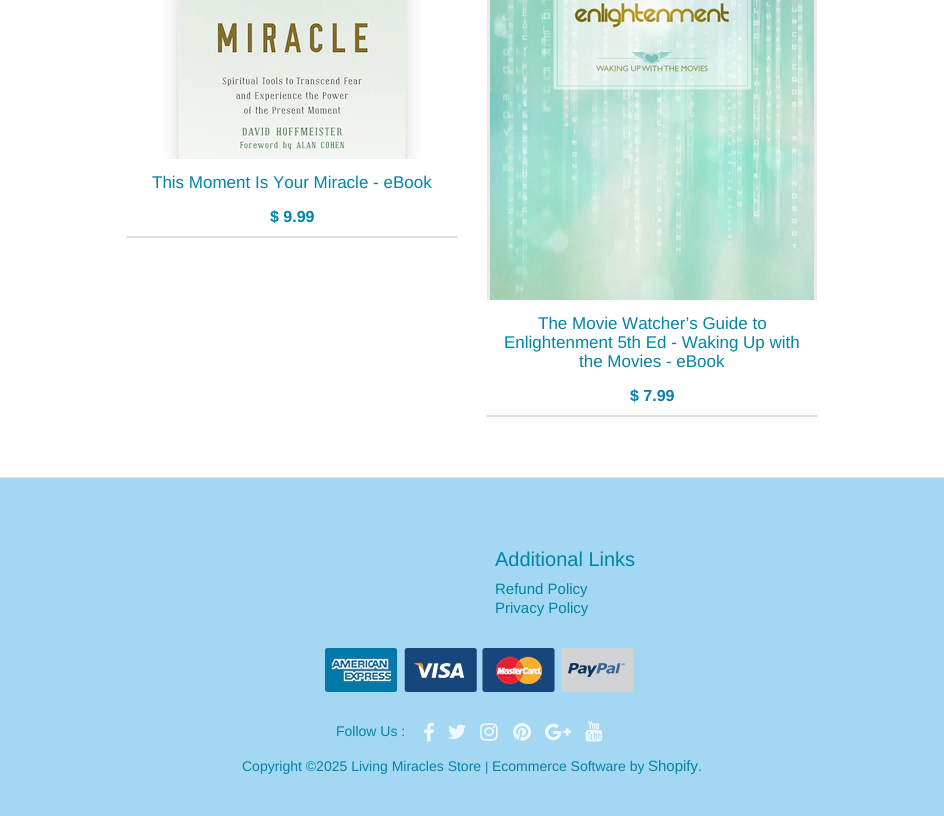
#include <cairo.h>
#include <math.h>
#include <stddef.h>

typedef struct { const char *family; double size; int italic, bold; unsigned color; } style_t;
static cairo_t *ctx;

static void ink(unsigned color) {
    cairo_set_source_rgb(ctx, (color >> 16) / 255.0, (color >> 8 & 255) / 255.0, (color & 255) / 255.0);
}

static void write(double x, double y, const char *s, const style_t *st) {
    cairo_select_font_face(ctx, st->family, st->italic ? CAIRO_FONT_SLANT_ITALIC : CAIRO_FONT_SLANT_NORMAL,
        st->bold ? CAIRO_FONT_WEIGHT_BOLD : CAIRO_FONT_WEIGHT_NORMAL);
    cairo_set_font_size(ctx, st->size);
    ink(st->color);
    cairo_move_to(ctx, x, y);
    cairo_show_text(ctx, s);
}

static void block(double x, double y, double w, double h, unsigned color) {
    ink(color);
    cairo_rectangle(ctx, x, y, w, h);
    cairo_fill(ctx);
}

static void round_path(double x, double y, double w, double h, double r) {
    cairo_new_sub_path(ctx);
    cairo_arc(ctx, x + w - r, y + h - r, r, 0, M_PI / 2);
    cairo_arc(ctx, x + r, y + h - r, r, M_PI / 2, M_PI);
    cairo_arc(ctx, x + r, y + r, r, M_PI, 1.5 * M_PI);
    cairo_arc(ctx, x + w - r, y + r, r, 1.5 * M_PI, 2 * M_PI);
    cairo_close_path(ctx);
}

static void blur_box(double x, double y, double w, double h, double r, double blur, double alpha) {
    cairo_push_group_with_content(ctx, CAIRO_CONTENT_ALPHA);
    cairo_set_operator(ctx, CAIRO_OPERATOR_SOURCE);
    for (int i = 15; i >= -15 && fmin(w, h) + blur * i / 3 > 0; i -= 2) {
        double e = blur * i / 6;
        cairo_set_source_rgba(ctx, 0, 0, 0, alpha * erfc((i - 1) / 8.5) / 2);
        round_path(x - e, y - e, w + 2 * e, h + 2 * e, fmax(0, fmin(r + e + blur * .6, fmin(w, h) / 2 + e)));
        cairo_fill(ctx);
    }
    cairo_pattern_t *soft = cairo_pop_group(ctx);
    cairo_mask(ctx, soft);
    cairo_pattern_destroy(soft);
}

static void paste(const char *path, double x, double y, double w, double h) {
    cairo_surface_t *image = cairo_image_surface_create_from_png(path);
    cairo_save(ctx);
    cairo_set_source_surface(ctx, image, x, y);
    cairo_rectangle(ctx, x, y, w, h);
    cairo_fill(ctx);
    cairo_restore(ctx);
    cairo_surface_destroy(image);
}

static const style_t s1 = {"Liberation Sans", 17, 0, 0, 0x0283a8};
static const style_t s2 = {"Liberation Sans", 16, 0, 1, 0x0283a8};
static const style_t s3 = {"Liberation Sans", 20, 0, 0, 0x0283a8};
static const style_t s4 = {"Liberation Sans", 15, 0, 0, 0x0283a8};
static const style_t s5 = {"Liberation Sans", 14, 0, 0, 0x0283a8};
static const style_t s6 = {"Liberation Sans", 13, 0, 0, 0x0283a8};

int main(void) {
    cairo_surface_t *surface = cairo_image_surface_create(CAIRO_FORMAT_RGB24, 944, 816);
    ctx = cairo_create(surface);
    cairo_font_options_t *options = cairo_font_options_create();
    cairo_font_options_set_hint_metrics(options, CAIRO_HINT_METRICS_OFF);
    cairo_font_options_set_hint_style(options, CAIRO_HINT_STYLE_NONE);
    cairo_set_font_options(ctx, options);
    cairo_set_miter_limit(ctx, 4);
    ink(0xffffff);
    cairo_paint(ctx);
    cairo_save(ctx);
    cairo_rectangle(ctx, 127, 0, 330, 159);
    cairo_clip(ctx);
    ink(0x000000);
    blur_box(181, -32, 222, 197, 0, 10.5, 0.22);
    cairo_restore(ctx);
    paste("pic1.png", 179, 0, 226, 159);
    write(152, 188, "This Moment Is Your Miracle - eBook", &s1);
    block(127, 236, 330, 2, 0xdddddd);
    write(270, 222, "$ 9.99", &s2);
    cairo_save(ctx);
    cairo_rectangle(ctx, 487, 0, 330, 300);
    cairo_clip(ctx);
    ink(0x000000);
    blur_box(492, -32, 320, 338, 0, 10.5, 0.22);
    cairo_restore(ctx);
    paste("pic2.png", 490, 0, 324, 300);
    write(538, 329, "The Movie Watcher’s Guide to", &s1);
    write(504, 348, "Enlightenment 5th Ed - Waking Up with", &s1);
    write(579, 367, "the Movies - eBook", &s1);
    block(487, 415, 330, 2, 0xdddddd);
    write(630, 401, "$ 7.99", &s2);
    block(0, 478, 944, 338, 0xa4d7f1);
    block(0, 477, 944, 1, 0xe5e5e5);
    write(495, 566, "Additional Links", &s3);
    write(495, 594, "Refund Policy", &s4);
    write(495, 613, "Privacy Policy", &s4);
    paste("pic3.png", 325, 648, 73, 44);
    paste("pic4.png", 404, 648, 73, 44);
    paste("pic5.png", 482, 648, 73, 44);
    paste("pic6.png", 561, 648, 73, 44);
    write(336, 736, "Follow Us :", &s5);
    paste("pic7.png", 424, 722, 10, 20);
    paste("pic8.png", 448, 724, 18, 15);
    paste("pic9.png", 480, 723, 18, 18);
    paste("pic10.png", 513, 723, 18, 18);
    paste("pic11.png", 545, 723, 26, 18);
    paste("pic12.png", 585, 721, 18, 21);
    write(242, 771, "Copyright ©2025 Living Miracles Store", &s5);
    write(485, 771, "|", &s6);
    write(492, 771, "Ecommerce Software by", &s5);
    write(648, 771, "Shopify", &s4);
    write(698, 771, ".", &s5);
    cairo_surface_write_to_png(surface, "screenshot.png");
    cairo_font_options_destroy(options);
    cairo_destroy(ctx);
    cairo_surface_destroy(surface);
    return 0;
}
